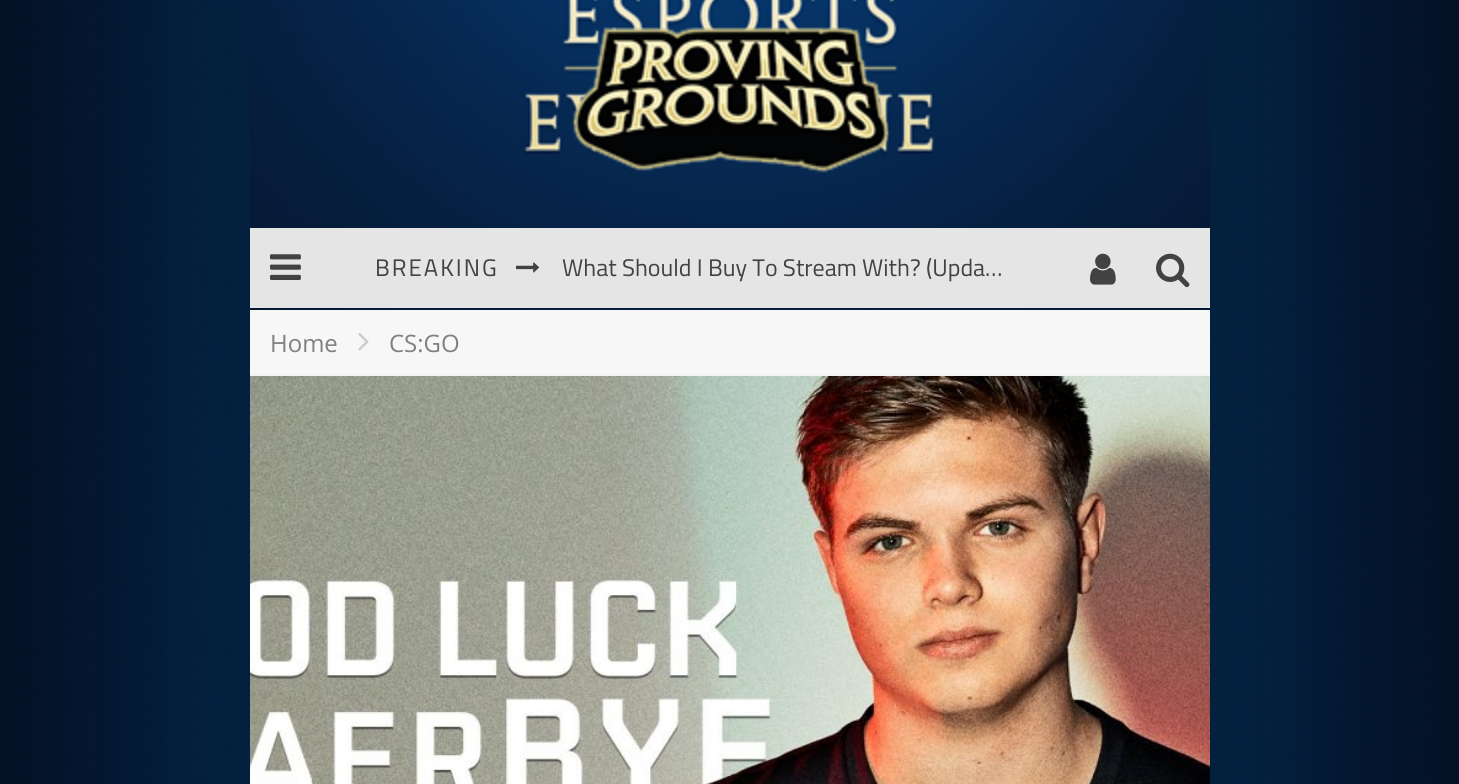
#include <cairo.h>
#include <math.h>
#include <stddef.h>

typedef struct { const char *family; double size; int italic, bold; unsigned color; } style_t;
static cairo_t *ctx;

static void ink(unsigned color) {
    cairo_set_source_rgb(ctx, (color >> 16) / 255.0, (color >> 8 & 255) / 255.0, (color & 255) / 255.0);
}

static void write(double x, double y, const char *s, const style_t *st) {
    cairo_select_font_face(ctx, st->family, st->italic ? CAIRO_FONT_SLANT_ITALIC : CAIRO_FONT_SLANT_NORMAL,
        st->bold ? CAIRO_FONT_WEIGHT_BOLD : CAIRO_FONT_WEIGHT_NORMAL);
    cairo_set_font_size(ctx, st->size);
    ink(st->color);
    cairo_move_to(ctx, x, y);
    cairo_show_text(ctx, s);
}

static void write_spaced(double x, double y, const char *s, double letter, double word) {
    cairo_move_to(ctx, x, y);
    while (*s) {
        char ch[5] = {0};
        int n = 0;
        do ch[n++] = *s++; while ((*s & 0xC0) == 0x80);
        cairo_show_text(ctx, ch);
        cairo_rel_move_to(ctx, letter + word * (*ch == ' '), 0);
    }
}

static void block(double x, double y, double w, double h, unsigned color) {
    ink(color);
    cairo_rectangle(ctx, x, y, w, h);
    cairo_fill(ctx);
}

static void round_path(double x, double y, double w, double h, double r) {
    cairo_new_sub_path(ctx);
    cairo_arc(ctx, x + w - r, y + h - r, r, 0, M_PI / 2);
    cairo_arc(ctx, x + r, y + h - r, r, M_PI / 2, M_PI);
    cairo_arc(ctx, x + r, y + r, r, M_PI, 1.5 * M_PI);
    cairo_arc(ctx, x + w - r, y + r, r, 1.5 * M_PI, 2 * M_PI);
    cairo_close_path(ctx);
}

static void blur_box(double x, double y, double w, double h, double r, double blur, double alpha) {
    cairo_push_group_with_content(ctx, CAIRO_CONTENT_ALPHA);
    cairo_set_operator(ctx, CAIRO_OPERATOR_SOURCE);
    for (int i = 15; i >= -15 && fmin(w, h) + blur * i / 3 > 0; i -= 2) {
        double e = blur * i / 6;
        cairo_set_source_rgba(ctx, 0, 0, 0, alpha * erfc((i - 1) / 8.5) / 2);
        round_path(x - e, y - e, w + 2 * e, h + 2 * e, fmax(0, fmin(r + e + blur * .6, fmin(w, h) / 2 + e)));
        cairo_fill(ctx);
    }
    cairo_pattern_t *soft = cairo_pop_group(ctx);
    cairo_mask(ctx, soft);
    cairo_pattern_destroy(soft);
}

static void paste(const char *path, double x, double y, double w, double h) {
    cairo_surface_t *image = cairo_image_surface_create_from_png(path);
    cairo_save(ctx);
    cairo_set_source_surface(ctx, image, x, y);
    cairo_rectangle(ctx, x, y, w, h);
    cairo_fill(ctx);
    cairo_restore(ctx);
    cairo_surface_destroy(image);
}

static const style_t s1 = {"Titillium Web", 24, 0, 0, 0x424242};
static const style_t s2 = {"Open Sans", 24, 0, 0, 0x808080};

int main(void) {
    cairo_surface_t *surface = cairo_image_surface_create(CAIRO_FORMAT_RGB24, 1459, 784);
    ctx = cairo_create(surface);
    cairo_font_options_t *options = cairo_font_options_create();
    cairo_font_options_set_hint_metrics(options, CAIRO_HINT_METRICS_OFF);
    cairo_font_options_set_hint_style(options, CAIRO_HINT_STYLE_NONE);
    cairo_set_font_options(ctx, options);
    cairo_set_miter_limit(ctx, 4);
    ink(0xffffff);
    cairo_paint(ctx);
    paste("pic1.png", 0, 0, 1459, 784);
    ink(0x000000);
    blur_box(230, 0, 960, 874, 0, 30, 0.15);
    blur_box(270, 0, 960, 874, 0, 30, 0.15);
    paste("pic2.png", 250, 0, 960, 310);
    paste("pic3.png", 572, 27, 318, 146);
    block(250, 228, 960, 80, 0xe5e5e5);
    paste("pic4.png", 270, 254, 31, 26);
    cairo_select_font_face(ctx, "Titillium Web", CAIRO_FONT_SLANT_NORMAL, CAIRO_FONT_WEIGHT_NORMAL);
    cairo_set_font_size(ctx, 24);
    ink(0x424242);
    write_spaced(375, 276, "BREAKING", 2, 0);
    paste("pic5.png", 516, 262, 24, 11);
    write(562, 276, "What Should I Buy To Stream With? (Upda…", &s1);
    paste("pic6.png", 1090, 253, 26, 32);
    paste("pic7.png", 1156, 253, 34, 35);
    block(250, 310, 960, 64, 0xf7f7f7);
    block(250, 374, 960, 2, 0xf3f3f3);
    write(270, 352, "Home", &s2);
    paste("pic8.png", 358, 333, 11, 18);
    write(389, 352, "CS:GO", &s2);
    paste("pic9.png", 250, 376, 960, 408);
    cairo_surface_write_to_png(surface, "screenshot.png");
    cairo_font_options_destroy(options);
    cairo_destroy(ctx);
    cairo_surface_destroy(surface);
    return 0;
}
